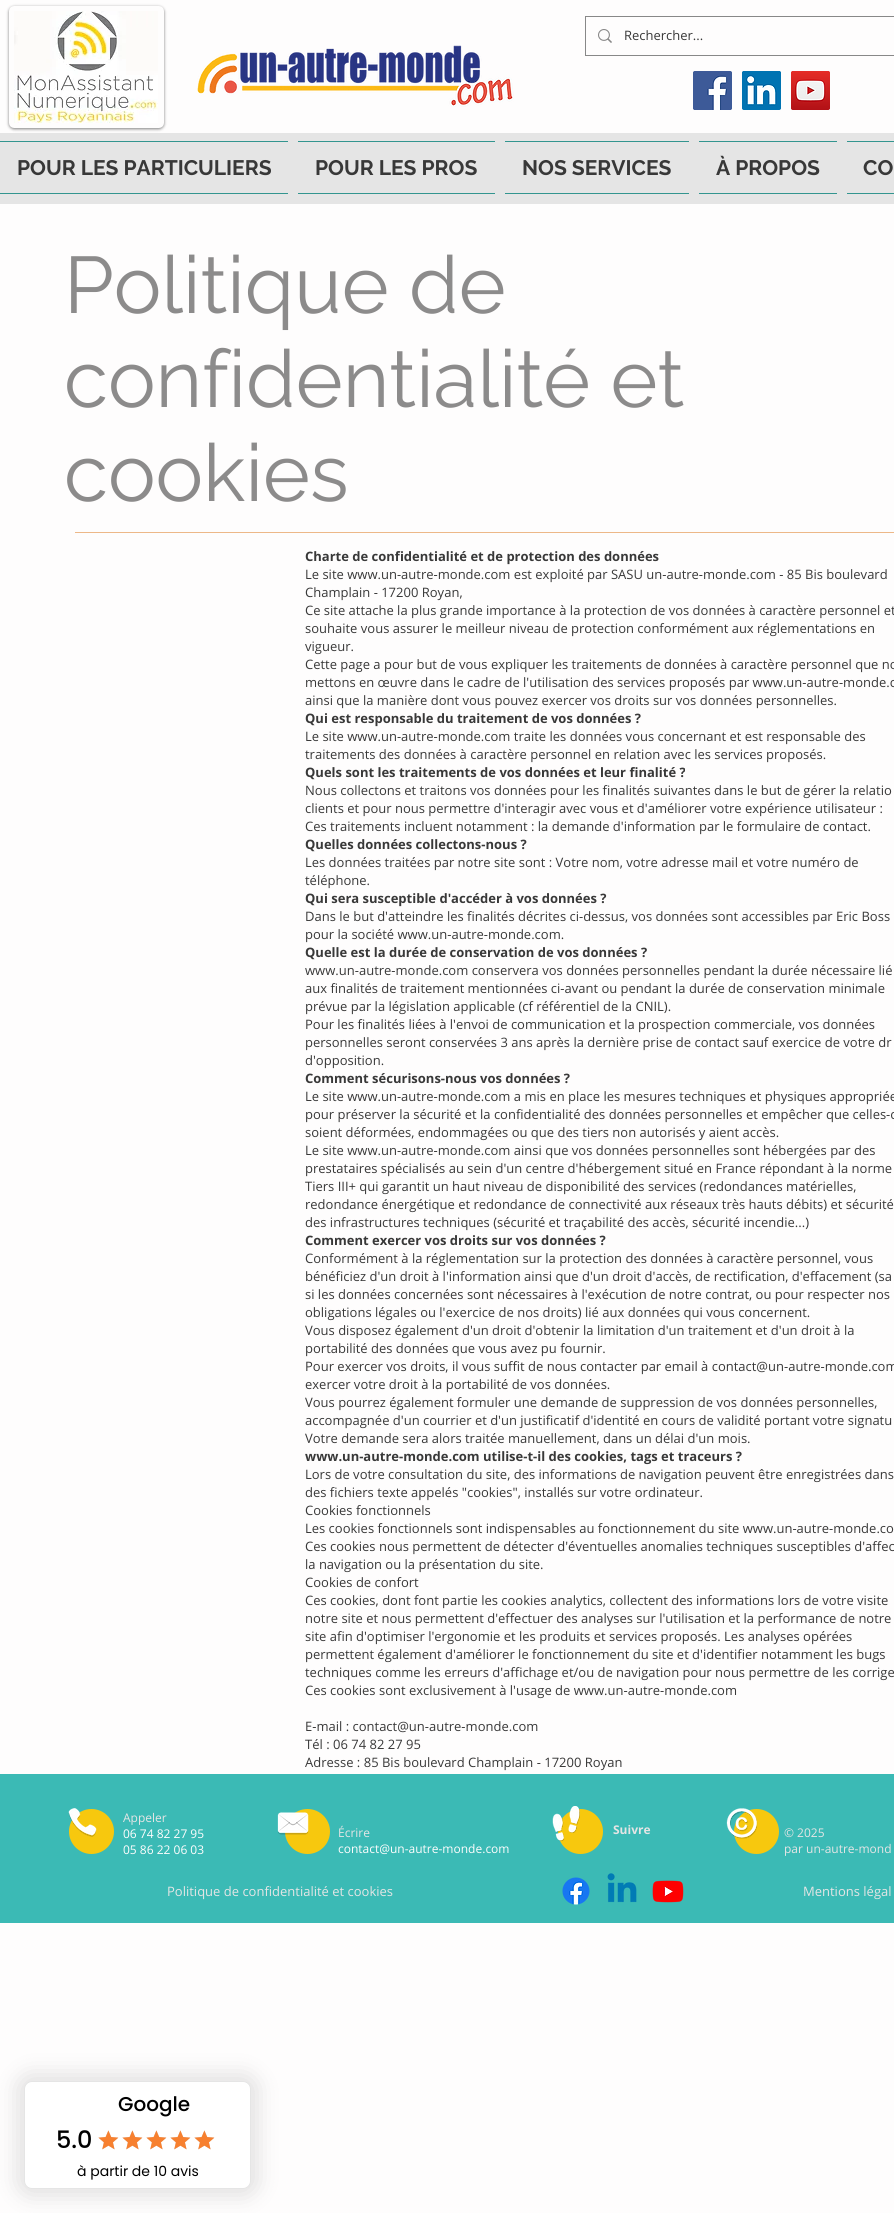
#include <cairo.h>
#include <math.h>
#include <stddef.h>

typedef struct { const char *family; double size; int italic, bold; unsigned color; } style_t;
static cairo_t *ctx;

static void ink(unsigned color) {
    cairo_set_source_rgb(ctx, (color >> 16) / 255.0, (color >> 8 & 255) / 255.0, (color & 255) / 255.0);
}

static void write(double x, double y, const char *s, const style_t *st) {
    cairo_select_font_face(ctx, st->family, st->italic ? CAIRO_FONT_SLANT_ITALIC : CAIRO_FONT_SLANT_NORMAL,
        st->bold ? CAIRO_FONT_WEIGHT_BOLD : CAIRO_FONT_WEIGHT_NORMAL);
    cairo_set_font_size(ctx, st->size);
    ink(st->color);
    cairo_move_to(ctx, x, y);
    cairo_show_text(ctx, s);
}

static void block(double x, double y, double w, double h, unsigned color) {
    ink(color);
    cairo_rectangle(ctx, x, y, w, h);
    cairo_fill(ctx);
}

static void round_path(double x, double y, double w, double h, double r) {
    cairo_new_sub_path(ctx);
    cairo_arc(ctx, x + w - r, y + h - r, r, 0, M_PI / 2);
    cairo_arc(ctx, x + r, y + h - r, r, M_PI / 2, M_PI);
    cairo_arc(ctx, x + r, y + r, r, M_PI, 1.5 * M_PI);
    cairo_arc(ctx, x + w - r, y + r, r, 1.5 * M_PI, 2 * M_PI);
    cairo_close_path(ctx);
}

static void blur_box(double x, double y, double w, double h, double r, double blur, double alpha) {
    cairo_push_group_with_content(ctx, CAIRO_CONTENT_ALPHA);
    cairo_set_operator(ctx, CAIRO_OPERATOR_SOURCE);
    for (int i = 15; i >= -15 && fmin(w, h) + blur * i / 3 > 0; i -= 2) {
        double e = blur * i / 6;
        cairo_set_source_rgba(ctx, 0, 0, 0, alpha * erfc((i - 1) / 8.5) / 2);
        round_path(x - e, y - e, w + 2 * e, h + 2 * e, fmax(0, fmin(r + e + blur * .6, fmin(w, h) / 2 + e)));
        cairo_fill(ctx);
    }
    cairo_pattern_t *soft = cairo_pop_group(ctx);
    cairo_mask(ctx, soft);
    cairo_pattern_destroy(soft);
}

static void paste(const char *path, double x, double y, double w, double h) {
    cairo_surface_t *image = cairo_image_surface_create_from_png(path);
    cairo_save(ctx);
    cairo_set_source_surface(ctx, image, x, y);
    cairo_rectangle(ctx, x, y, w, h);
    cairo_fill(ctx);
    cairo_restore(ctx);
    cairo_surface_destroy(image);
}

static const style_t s1 = {"Open Sans", 13, 0, 0, 0x383838};
static const style_t s2 = {"Raleway", 21, 0, 1, 0x383838};
static const style_t s3 = {"Raleway", 80, 0, 0, 0x8c8b8b};
static const style_t s4 = {"Open Sans", 13, 0, 1, 0x383838};
static const style_t s5 = {"Open Sans", 12, 0, 0, 0xe5e5e5};
static const style_t s6 = {"Open Sans", 12, 0, 0, 0xfefdfd};
static const style_t s7 = {"Open Sans", 12, 0, 1, 0xe5e5e5};
static const style_t s8 = {"Open Sans", 13, 0, 0, 0xe5e5e5};
static const style_t s9 = {"Poppins Medium", 20, 0, 0, 0x000000};
static const style_t s10 = {"Poppins Medium", 24, 0, 0, 0x000000};
static const style_t s11 = {"Poppins", 14, 0, 0, 0x000000};

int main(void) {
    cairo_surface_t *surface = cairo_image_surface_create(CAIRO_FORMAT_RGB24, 894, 2213);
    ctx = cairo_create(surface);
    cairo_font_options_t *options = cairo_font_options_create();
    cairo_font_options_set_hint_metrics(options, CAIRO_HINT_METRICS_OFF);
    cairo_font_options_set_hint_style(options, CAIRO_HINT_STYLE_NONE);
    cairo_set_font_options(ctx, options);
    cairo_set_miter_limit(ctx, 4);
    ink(0xfefdfd);
    cairo_paint(ctx);
    ink(0x000000);
    blur_box(9, 7, 155, 122, 5, 1.5, 0.5);
    ink(0xfefdfd);
    round_path(11.5, 8.5, 150, 117, 2.5);
    cairo_fill_preserve(ctx);
    cairo_set_line_width(ctx, 5);
    cairo_stroke(ctx);
    paste("pic1.png", 14, 11, 144, 112);
    cairo_rectangle(ctx, 585.5, 16.5, 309, 39);
    ink(0x888888);
    cairo_set_line_width(ctx, 1);
    cairo_stroke(ctx);
    paste("pic2.png", 598, 29, 14, 14);
    write(624, 40, "Rechercher...", &s1);
    paste("pic3.png", 197, 45, 317, 62);
    paste("pic4.png", 693, 71, 39, 39);
    paste("pic5.png", 742, 71, 39, 39);
    paste("pic6.png", 791, 71, 39, 39);
    block(0, 133, 894, 71, 0xe5e5e5);
    block(0, 141, 288, 1, 0x33958f);
    block(0, 193, 288, 1, 0x33958f);
    write(17, 175, "POUR LES PARTICULIERS", &s2);
    block(298, 141, 197, 1, 0x33958f);
    block(298, 193, 197, 1, 0x33958f);
    write(315, 175, "POUR LES PROS", &s2);
    block(505, 141, 184, 1, 0x33958f);
    block(505, 193, 184, 1, 0x33958f);
    write(522, 175, "NOS SERVICES", &s2);
    block(699, 141, 138, 1, 0x33958f);
    block(699, 193, 138, 1, 0x33958f);
    write(716, 175, "À PROPOS", &s2);
    block(847, 141, 47, 1, 0x33958f);
    block(847, 193, 47, 1, 0x33958f);
    write(863, 175, "CO", &s2);
    write(64, 313, "Politique de", &s3);
    write(64, 407, "confidentialité et", &s3);
    write(64, 501, "cookies", &s3);
    block(75, 532, 819, 1, 0xedb888);
    write(305, 561, "Charte de confidentialité et de protection des données", &s4);
    write(305, 579, "Le site www.un-autre-monde.com est exploité par SASU un-autre-monde.com - 85 Bis boulevard", &s1);
    write(305, 597, "Champlain - 17200 Royan,", &s1);
    write(305, 615, "Ce site attache la plus grande importance à la protection de vos données à caractère personnel et", &s1);
    write(305, 633, "souhaite vous assurer le meilleur niveau de protection conformément aux réglementations en", &s1);
    write(305, 651, "vigueur.", &s1);
    write(305, 669, "Cette page a pour but de vous expliquer les traitements de données à caractère personnel que no", &s1);
    write(305, 687, "mettons en œuvre dans le cadre de l'utilisation des services proposés par www.un-autre-monde.c", &s1);
    write(305, 705, "ainsi que la manière dont vous pouvez exercer vos droits sur vos données personnelles.", &s1);
    write(305, 723, "Qui est responsable du traitement de vos données ?", &s4);
    write(305, 741, "Le site www.un-autre-monde.com traite les données vous concernant et est responsable des", &s1);
    write(305, 759, "traitements des données à caractère personnel en relation avec les services proposés.", &s1);
    write(305, 777, "Quels sont les traitements de vos données et leur finalité ?", &s4);
    write(305, 795, "Nous collectons et traitons vos données pour les finalités suivantes dans le but de gérer la relatio", &s1);
    write(305, 813, "clients et pour nous permettre d'interagir avec vous et d'améliorer votre expérience utilisateur :", &s1);
    write(305, 831, "Ces traitements incluent notamment : la demande d'information par le formulaire de contact.", &s1);
    write(305, 849, "Quelles données collectons-nous ?", &s4);
    write(305, 867, "Les données traitées par notre site sont : Votre nom, votre adresse mail et votre numéro de", &s1);
    write(305, 885, "téléphone.", &s1);
    write(305, 903, "Qui sera susceptible d'accéder à vos données ?", &s4);
    write(305, 921, "Dans le but d'atteindre les finalités décrites ci-dessus, vos données sont accessibles par Eric Boss", &s1);
    write(305, 939, "pour la société www.un-autre-monde.com.", &s1);
    write(305, 957, "Quelle est la durée de conservation de vos données ?", &s4);
    write(305, 975, "www.un-autre-monde.com conservera vos données personnelles pendant la durée nécessaire lié", &s1);
    write(305, 993, "aux finalités de traitement mentionnées ci-avant ou pendant la durée de conservation minimale", &s1);
    write(305, 1011, "prévue par la législation applicable (cf référentiel de la CNIL).", &s1);
    write(305, 1029, "Pour les finalités liées à l'envoi de communication et la prospection commerciale, vos données", &s1);
    write(305, 1047, "personnelles seront conservées 3 ans après la dernière prise de contact sauf exercice de votre dr", &s1);
    write(305, 1065, "d'opposition.", &s1);
    write(305, 1083, "Comment sécurisons-nous vos données ?", &s4);
    write(305, 1101, "Le site www.un-autre-monde.com a mis en place les mesures techniques et physiques appropriée", &s1);
    write(305, 1119, "pour préserver la sécurité et la confidentialité des données personnelles et empêcher que celles-c", &s1);
    write(305, 1137, "soient déformées, endommagées ou que des tiers non autorisés y aient accès.", &s1);
    write(305, 1155, "Le site www.un-autre-monde.com ainsi que vos données personnelles sont hébergées par des", &s1);
    write(305, 1173, "prestataires spécialisés au sein d'un centre d'hébergement situé en France répondant à la norme", &s1);
    write(305, 1191, "Tiers III+ qui garantit un haut niveau de disponibilité des services (redondances matérielles,", &s1);
    write(305, 1209, "redondance énergétique et redondance de connectivité aux réseaux très hauts débits) et sécurité", &s1);
    write(305, 1227, "des infrastructures techniques (sécurité et traçabilité des accès, sécurité incendie...)", &s1);
    write(305, 1245, "Comment exercer vos droits sur vos données ?", &s4);
    write(305, 1263, "Conformément à la réglementation sur la protection des données à caractère personnel, vous", &s1);
    write(305, 1281, "bénéficiez d'un droit à l'information ainsi que d'un droit d'accès, de rectification, d'effacement (sa", &s1);
    write(305, 1299, "si les données concernées sont nécessaires à l'exécution de notre contrat, ou pour respecter nos", &s1);
    write(305, 1317, "obligations légales ou l'exercice de nos droits) lié aux données qui vous concernent.", &s1);
    write(305, 1335, "Vous disposez également d'un droit d'obtenir la limitation d'un traitement et d'un droit à la", &s1);
    write(305, 1353, "portabilité des données que vous avez pu fournir.", &s1);
    write(305, 1371, "Pour exercer vos droits, il vous suffit de nous contacter par email à contact@un-autre-monde.com", &s1);
    write(305, 1389, "exercer votre droit à la portabilité de vos données.", &s1);
    write(305, 1407, "Vous pourrez également formuler une demande de suppression de vos données personnelles,", &s1);
    write(305, 1425, "accompagnée d'un courrier et d'un justificatif d'identité en cours de validité portant votre signatu", &s1);
    write(305, 1443, "Votre demande sera alors traitée manuellement, dans un délai d'un mois.", &s1);
    write(305, 1461, "www.un-autre-monde.com utilise-t-il des cookies, tags et traceurs ?", &s4);
    write(305, 1479, "Lors de votre consultation du site, des informations de navigation peuvent être enregistrées dans", &s1);
    write(305, 1497, "des fichiers texte appelés \"cookies\", installés sur votre ordinateur.", &s1);
    write(305, 1515, "Cookies fonctionnels", &s1);
    write(305, 1533, "Les cookies fonctionnels sont indispensables au fonctionnement du site www.un-autre-monde.co", &s1);
    write(305, 1551, "Ces cookies nous permettent de détecter d'éventuelles anomalies techniques susceptibles d'affec", &s1);
    write(305, 1569, "la navigation ou la présentation du site.", &s1);
    write(305, 1587, "Cookies de confort", &s1);
    write(305, 1605, "Ces cookies, dont font partie les cookies analytics, collectent des informations lors de votre visite", &s1);
    write(305, 1623, "notre site et nous permettent d'effectuer des analyses sur l'utilisation et la performance de notre", &s1);
    write(305, 1641, "site afin d'optimiser l'ergonomie et les produits et services proposés. Les analyses opérées", &s1);
    write(305, 1659, "permettent également d'améliorer le fonctionnement du site et d'identifier notamment les bugs", &s1);
    write(305, 1677, "techniques comme les erreurs d'affichage et/ou de navigation pour nous permettre de les corrige", &s1);
    write(305, 1695, "Ces cookies sont exclusivement à l'usage de www.un-autre-monde.com", &s1);
    write(305, 1731, "E-mail : contact@un-autre-monde.com", &s1);
    write(305, 1749, "Tél : 06 74 82 27 95", &s1);
    write(305, 1767, "Adresse : 85 Bis boulevard Champlain - 17200 Royan", &s1);
    block(0, 1774, 894, 149, 0x3bbab5);
    ink(0xf7c80e);
    cairo_new_path(ctx);
    cairo_arc(ctx, 91.5, 1831.5, 22.5, 0, 2 * M_PI);
    cairo_fill(ctx);
    paste("pic7.png", 68, 1808, 29, 29);
    cairo_arc(ctx, 580.5, 1831.5, 22.5, 0, 2 * M_PI);
    cairo_fill(ctx);
    paste("pic8.png", 552, 1806, 28, 35);
    cairo_arc(ctx, 756.5, 1831.5, 22.5, 0, 2 * M_PI);
    cairo_fill(ctx);
    paste("pic9.png", 726, 1808, 32, 31);
    write(123, 1822, "Appeler", &s5);
    write(123, 1838, "06 74 82 27 95", &s6);
    write(123, 1854, "05 86 22 06 03", &s6);
    ink(0xf7c80e);
    cairo_new_path(ctx);
    cairo_arc(ctx, 307.5, 1831.5, 22.5, 0, 2 * M_PI);
    cairo_fill(ctx);
    paste("pic10.png", 277, 1812, 32, 23);
    write(338, 1837, "Écrire", &s5);
    write(338, 1853, "contact@un-autre-monde.com", &s6);
    write(613, 1834, "Suivre", &s7);
    write(784, 1837, "© 2025", &s5);
    write(784, 1853, "par un-autre-mond", &s5);
    write(167, 1896, "Politique de confidentialité et cookies", &s8);
    paste("pic11.png", 562, 1877, 28, 28);
    paste("pic12.png", 607, 1873, 30, 30);
    paste("pic13.png", 652, 1880, 32, 23);
    write(803, 1896, "Mentions légal", &s8);
    ink(0x000000);
    blur_box(18, 2075, 239, 120, 12, 12, 0.12);
    ink(0xffffff);
    round_path(24.5, 2081.5, 226, 107, 7.5);
    cairo_fill_preserve(ctx);
    ink(0xe5e5e5);
    cairo_stroke(ctx);
    write(118, 2111, "Google", &s9);
    write(56, 2148, "5.0", &s10);
    paste("pic14.png", 98, 2130, 20, 20);
    paste("pic15.png", 98, 2130, 21, 20);
    paste("pic14.png", 122, 2130, 20, 20);
    paste("pic15.png", 122, 2130, 21, 20);
    paste("pic14.png", 146, 2130, 20, 20);
    paste("pic15.png", 146, 2130, 21, 20);
    paste("pic14.png", 170, 2130, 20, 20);
    paste("pic15.png", 170, 2130, 21, 20);
    paste("pic14.png", 194, 2130, 20, 20);
    paste("pic15.png", 194, 2130, 21, 20);
    write(77, 2176, "à partir de 10 avis", &s11);
    cairo_surface_write_to_png(surface, "screenshot.png");
    cairo_font_options_destroy(options);
    cairo_destroy(ctx);
    cairo_surface_destroy(surface);
    return 0;
}
